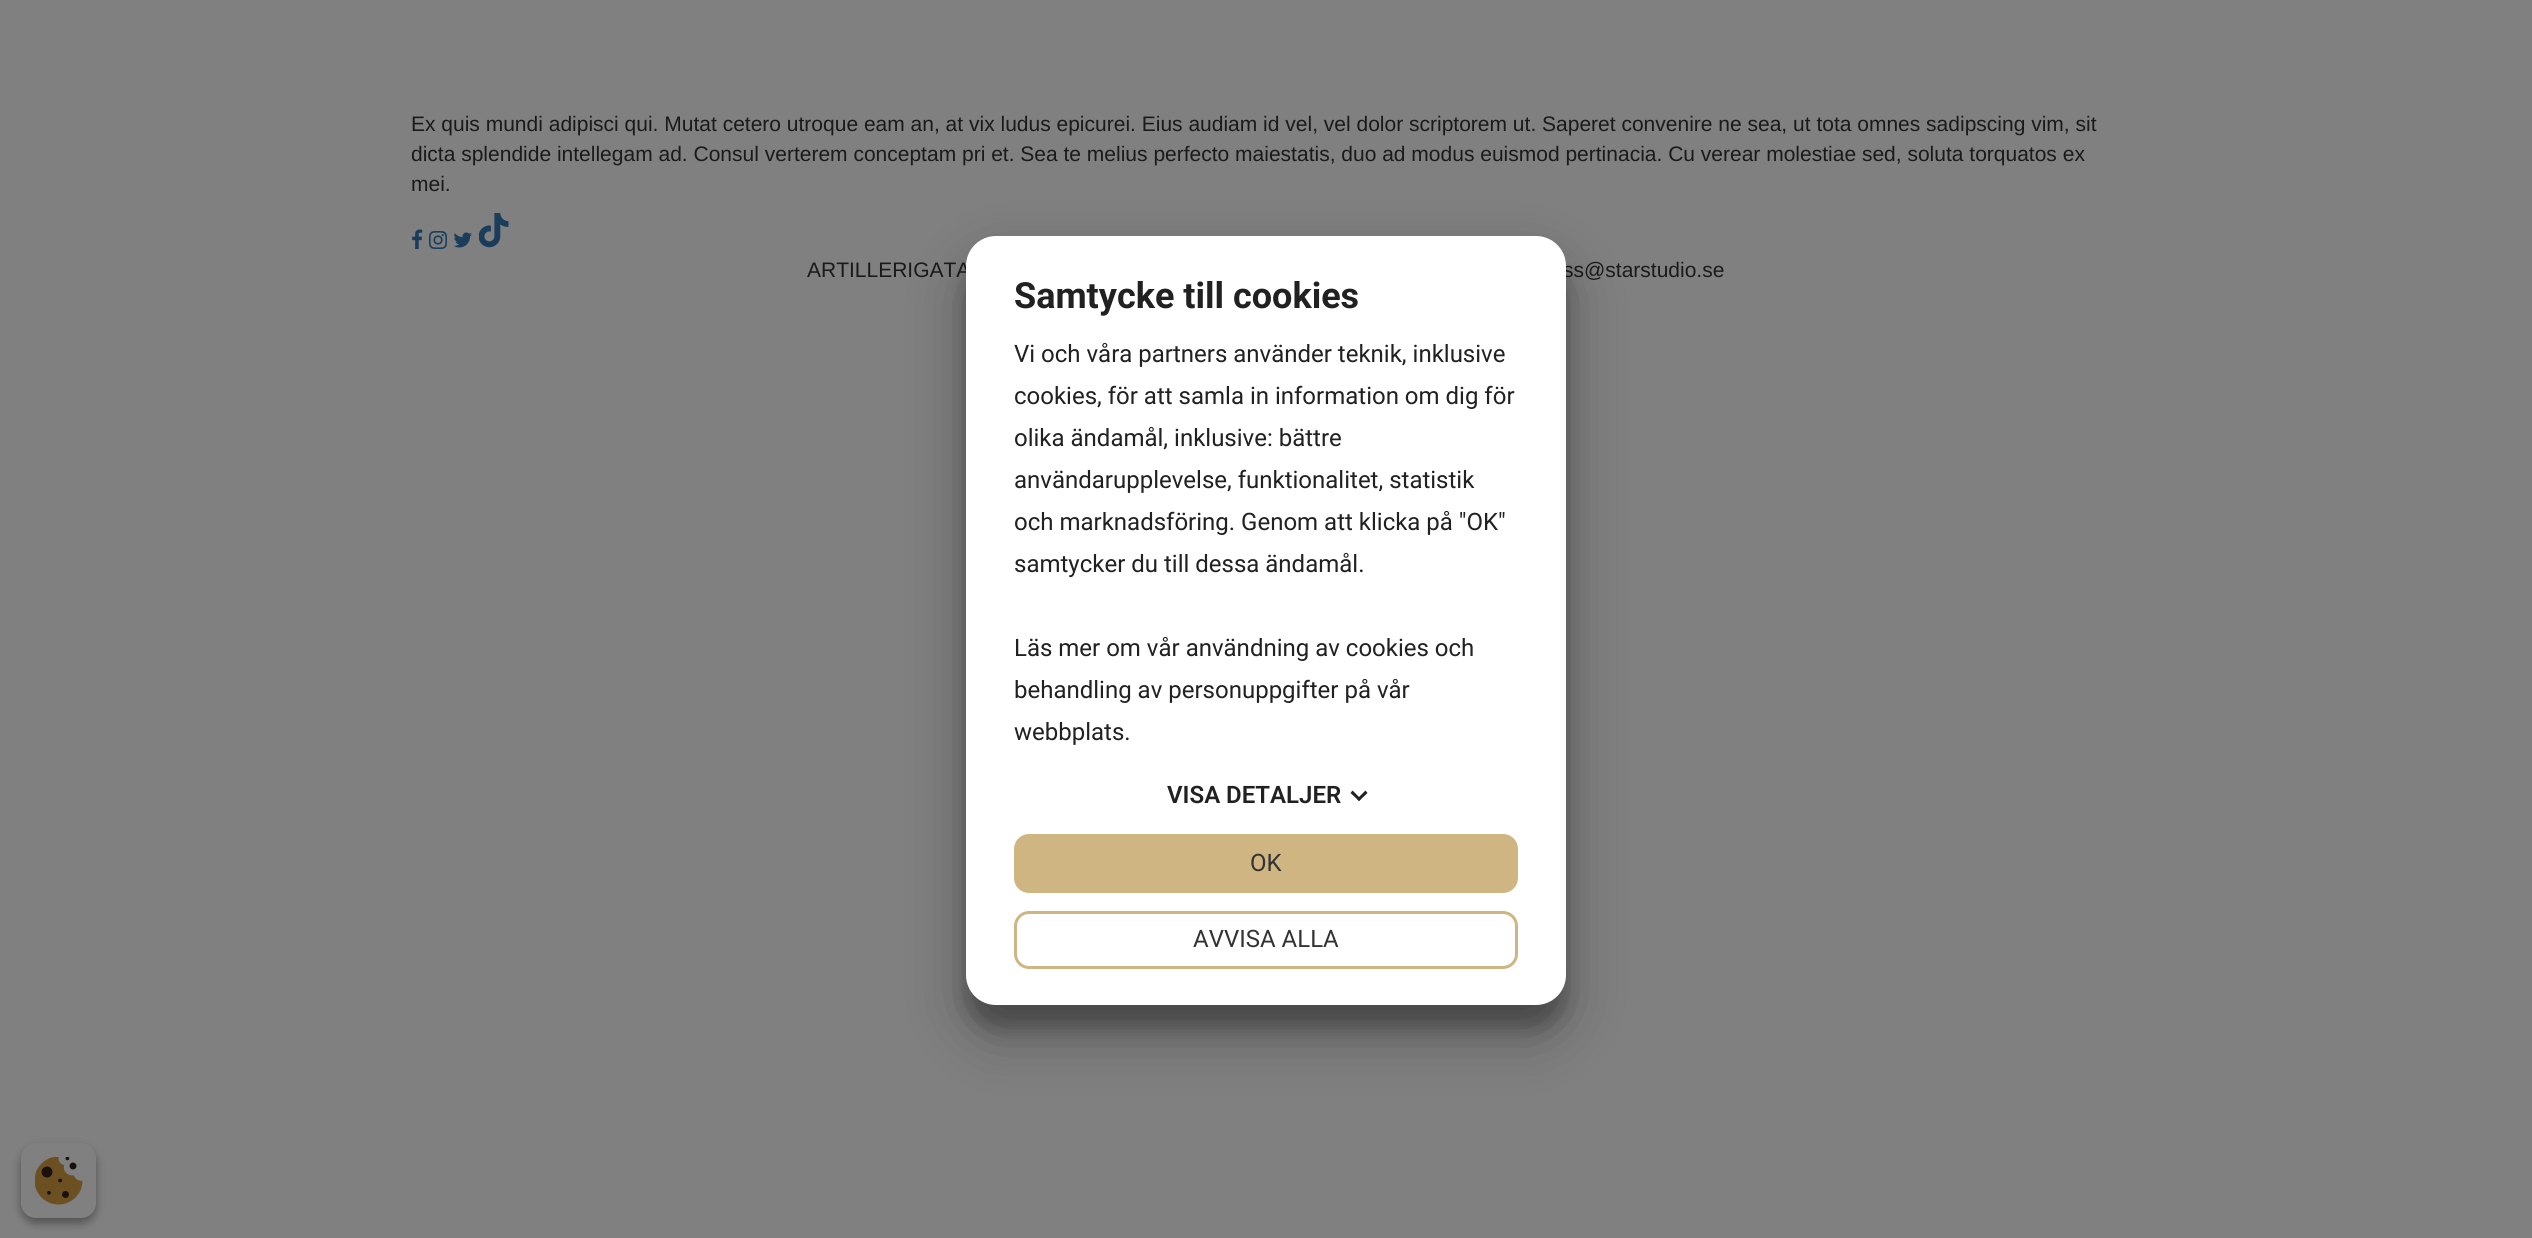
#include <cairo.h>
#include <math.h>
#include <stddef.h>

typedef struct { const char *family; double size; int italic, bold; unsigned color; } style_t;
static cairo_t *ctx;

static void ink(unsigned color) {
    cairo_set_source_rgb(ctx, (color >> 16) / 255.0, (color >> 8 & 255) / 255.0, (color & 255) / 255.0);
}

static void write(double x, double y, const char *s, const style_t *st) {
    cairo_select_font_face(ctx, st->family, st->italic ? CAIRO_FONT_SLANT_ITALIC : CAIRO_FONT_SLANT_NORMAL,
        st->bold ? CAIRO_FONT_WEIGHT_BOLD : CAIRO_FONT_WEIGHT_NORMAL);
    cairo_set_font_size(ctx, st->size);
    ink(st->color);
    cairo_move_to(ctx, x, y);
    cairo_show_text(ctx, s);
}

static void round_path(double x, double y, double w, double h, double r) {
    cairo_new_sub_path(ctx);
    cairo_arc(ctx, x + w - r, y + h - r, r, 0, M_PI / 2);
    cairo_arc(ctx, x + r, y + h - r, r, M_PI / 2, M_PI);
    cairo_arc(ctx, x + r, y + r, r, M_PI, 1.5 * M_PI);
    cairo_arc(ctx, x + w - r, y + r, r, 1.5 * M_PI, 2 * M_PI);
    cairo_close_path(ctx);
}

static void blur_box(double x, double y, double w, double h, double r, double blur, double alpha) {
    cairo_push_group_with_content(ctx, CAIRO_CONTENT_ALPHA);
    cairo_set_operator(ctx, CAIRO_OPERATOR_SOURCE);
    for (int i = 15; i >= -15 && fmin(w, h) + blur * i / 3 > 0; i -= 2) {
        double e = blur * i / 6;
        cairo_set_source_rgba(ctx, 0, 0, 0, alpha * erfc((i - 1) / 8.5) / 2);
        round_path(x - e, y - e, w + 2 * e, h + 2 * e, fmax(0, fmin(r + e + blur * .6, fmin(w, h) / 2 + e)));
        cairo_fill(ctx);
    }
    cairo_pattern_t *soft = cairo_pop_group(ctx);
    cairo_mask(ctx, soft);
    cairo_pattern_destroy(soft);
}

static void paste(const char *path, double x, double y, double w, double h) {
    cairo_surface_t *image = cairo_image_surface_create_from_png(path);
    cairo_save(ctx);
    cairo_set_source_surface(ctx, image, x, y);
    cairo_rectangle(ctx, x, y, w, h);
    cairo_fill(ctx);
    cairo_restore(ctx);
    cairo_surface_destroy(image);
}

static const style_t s1 = {"Liberation Sans", 21, 0, 0, 0x1a1a1a};
static const style_t s2 = {"Roboto", 36, 0, 1, 0x212121};
static const style_t s3 = {"Roboto", 24, 0, 0, 0x212121};
static const style_t s4 = {"Roboto SemiBold", 24, 0, 0, 0x212121};
static const style_t s5 = {"Roboto", 24, 0, 0, 0x333333};

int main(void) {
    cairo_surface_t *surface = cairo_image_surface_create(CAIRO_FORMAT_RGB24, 2532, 1238);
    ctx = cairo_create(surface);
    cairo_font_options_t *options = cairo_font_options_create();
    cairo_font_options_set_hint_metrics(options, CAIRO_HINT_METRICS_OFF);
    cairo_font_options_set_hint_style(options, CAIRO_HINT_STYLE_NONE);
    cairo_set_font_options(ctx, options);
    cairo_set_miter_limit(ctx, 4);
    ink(0x808080);
    cairo_paint(ctx);
    write(411, 131, "Ex quis mundi adipisci qui. Mutat cetero utroque eam an, at vix ludus epicurei. Eius audiam id vel, vel dolor scriptorem ut. Saperet convenire ne sea, ut tota omnes sadipscing vim, sit", &s1);
    write(411, 161, "dicta splendide intellegam ad. Consul verterem conceptam pri et. Sea te melius perfecto maiestatis, duo ad modus euismod pertinacia. Cu verear molestiae sed, soluta torquatos ex", &s1);
    write(411, 191, "mei.", &s1);
    paste("pic1.png", 412, 229, 11, 20);
    paste("pic2.png", 429, 231, 18, 18);
    paste("pic3.png", 453, 232, 19, 16);
    paste("pic4.png", 479, 213, 30, 35);
    write(807, 277, "ARTILLERIGATA", &s1);
    write(1563, 277, "ss@starstudio.se", &s1);
    ink(0x000000);
    blur_box(966, 258, 600, 770, 30, 9, 0.22);
    blur_box(966, 264, 600, 770, 30, 28.5, 0.3);
    ink(0xffffff);
    round_path(966, 236, 600, 769, 30);
    cairo_fill(ctx);
    write(1014, 308, "Samtycke till cookies", &s2);
    write(1014, 362, "Vi och våra partners använder teknik, inklusive", &s3);
    write(1014, 404, "cookies, för att samla in information om dig för", &s3);
    write(1014, 446, "olika ändamål, inklusive: bättre", &s3);
    write(1014, 488, "användarupplevelse, funktionalitet, statistik", &s3);
    write(1014, 530, "och marknadsföring. Genom att klicka på \"OK\"", &s3);
    write(1014, 572, "samtycker du till dessa ändamål.", &s3);
    write(1014, 656, "Läs mer om vår användning av cookies och", &s3);
    write(1014, 698, "behandling av personuppgifter på vår", &s3);
    write(1014, 740, "webbplats.", &s3);
    write(1167, 803, "VISA DETALJER", &s4);
    cairo_new_path(ctx);
    cairo_move_to(ctx, 1365.5, 790.5);
    cairo_line_to(ctx, 1367.5, 793);
    cairo_line_to(ctx, 1359, 801);
    cairo_line_to(ctx, 1357, 799);
    cairo_close_path(ctx);
    cairo_fill(ctx);
    cairo_new_path(ctx);
    cairo_move_to(ctx, 1352.5, 790.5);
    cairo_line_to(ctx, 1361, 799);
    cairo_line_to(ctx, 1359, 801);
    cairo_line_to(ctx, 1350.5, 793);
    cairo_close_path(ctx);
    cairo_fill(ctx);
    ink(0xceb582);
    round_path(1015.5, 835.5, 501, 56, 13.5);
    cairo_fill_preserve(ctx);
    cairo_set_line_width(ctx, 3);
    cairo_stroke(ctx);
    write(1250, 871, "OK", &s5);
    round_path(1015.5, 912.5, 501, 55, 13.5);
    ink(0xceb582);
    cairo_stroke(ctx);
    write(1193, 947, "AVVISA ALLA", &s5);
    ink(0x000000);
    blur_box(21, 1148, 75, 75, 15, 4.5, 0.23);
    blur_box(21, 1148, 75, 75, 15, 4.5, 0.16);
    ink(0x808080);
    round_path(21, 1143, 75, 75, 15);
    cairo_fill(ctx);
    paste("pic5.png", 35, 1157, 48, 48);
    cairo_surface_write_to_png(surface, "screenshot.png");
    cairo_font_options_destroy(options);
    cairo_destroy(ctx);
    cairo_surface_destroy(surface);
    return 0;
}
